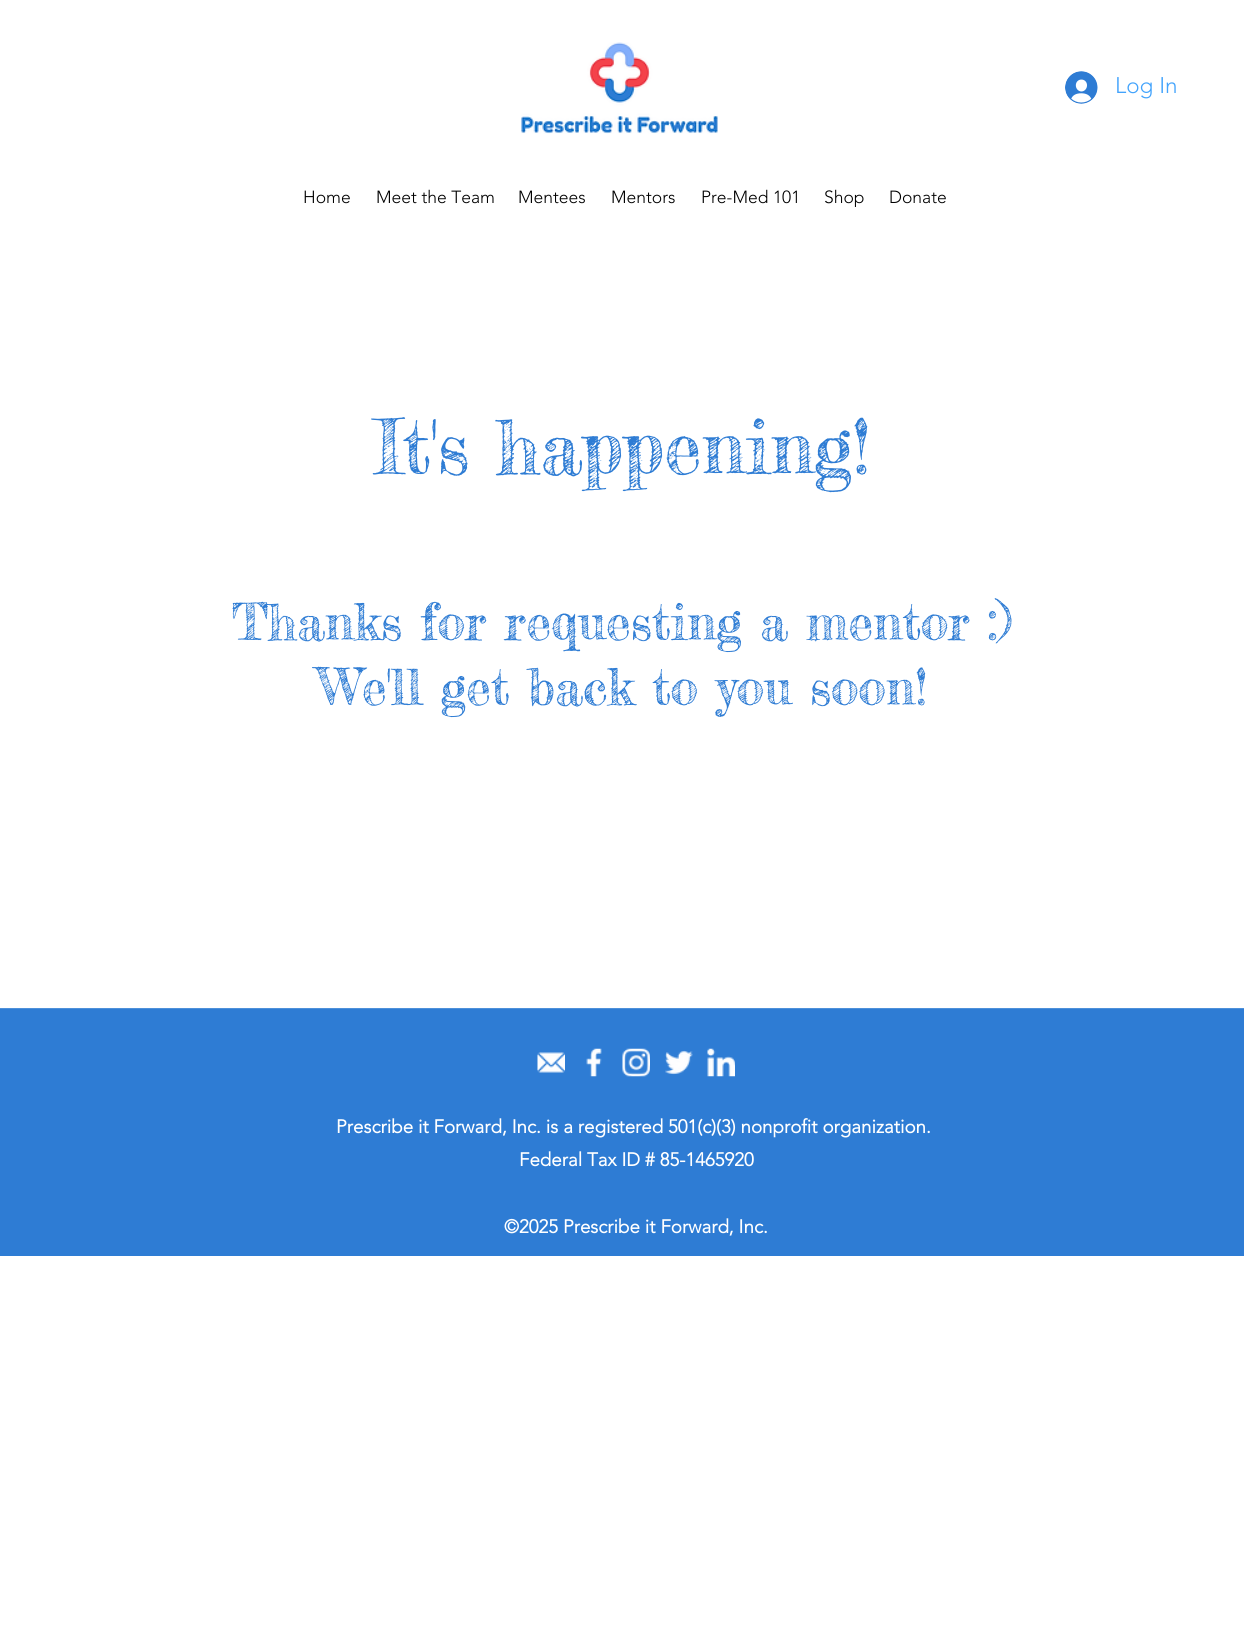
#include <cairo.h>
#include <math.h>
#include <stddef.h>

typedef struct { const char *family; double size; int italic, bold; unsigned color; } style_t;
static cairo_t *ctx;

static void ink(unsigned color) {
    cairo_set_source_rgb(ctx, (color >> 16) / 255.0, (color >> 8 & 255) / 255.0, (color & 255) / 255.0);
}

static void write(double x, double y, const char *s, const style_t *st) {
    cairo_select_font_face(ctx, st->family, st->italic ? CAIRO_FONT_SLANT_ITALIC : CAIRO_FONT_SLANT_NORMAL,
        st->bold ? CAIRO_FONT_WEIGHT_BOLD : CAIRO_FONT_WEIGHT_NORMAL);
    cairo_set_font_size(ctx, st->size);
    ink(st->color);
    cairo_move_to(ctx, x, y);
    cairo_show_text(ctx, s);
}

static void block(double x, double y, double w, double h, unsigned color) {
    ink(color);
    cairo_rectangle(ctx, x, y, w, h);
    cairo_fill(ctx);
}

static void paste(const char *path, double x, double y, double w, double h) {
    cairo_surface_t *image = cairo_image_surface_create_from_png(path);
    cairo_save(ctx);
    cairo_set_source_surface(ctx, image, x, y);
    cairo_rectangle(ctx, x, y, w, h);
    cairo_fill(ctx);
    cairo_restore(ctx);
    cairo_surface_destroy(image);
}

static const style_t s1 = {"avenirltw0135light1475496 Light", 22.5, 0, 0, 0x42a3fc};
static const style_t s2 = {"avenirltw0135light1475496 Light", 17.5, 0, 0, 0x000000};
static const style_t s3 = {"Fredericka the Great", 75, 0, 0, 0x2e7cd4};
static const style_t s4 = {"Fredericka the Great", 50, 0, 0, 0x2e7cd4};
static const style_t s5 = {"avenirltw0135light1475496", 18.75, 0, 1, 0xffffff};

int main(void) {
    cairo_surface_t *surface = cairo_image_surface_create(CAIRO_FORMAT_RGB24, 1244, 1637);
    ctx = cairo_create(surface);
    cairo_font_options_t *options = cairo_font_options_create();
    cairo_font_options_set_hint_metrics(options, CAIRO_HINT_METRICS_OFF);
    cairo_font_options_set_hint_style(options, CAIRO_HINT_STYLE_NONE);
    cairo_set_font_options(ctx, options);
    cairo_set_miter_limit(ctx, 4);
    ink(0xffffff);
    cairo_paint(ctx);
    paste("pic1.png", 521, 42, 197, 92);
    paste("pic2.png", 1065, 71, 33, 33);
    write(1115, 93, "Log In", &s1);
    write(303, 203, "Home", &s2);
    write(376, 203, "Meet the Team", &s2);
    write(518, 203, "Mentees", &s2);
    write(611, 203, "Mentors", &s2);
    write(701, 203, "Pre-Med 101", &s2);
    write(824, 203, "Shop", &s2);
    write(889, 203, "Donate", &s2);
    write(374, 474, "It's happening!", &s3);
    write(232, 640, "Thanks for requesting a mentor :)", &s4);
    write(318, 705, "We'll get back to you soon!", &s4);
    block(0, 1009, 1244, 247, 0x2e7cd4);
    block(0, 1008, 1244, 1, 0x4d90da);
    paste("pic3.png", 537, 1052, 28, 21);
    paste("pic4.png", 586, 1048, 16, 29);
    paste("pic5.png", 622, 1048, 28, 29);
    paste("pic6.png", 665, 1050, 28, 25);
    paste("pic7.png", 707, 1048, 28, 29);
    write(336, 1133, "Prescribe it Forward, Inc. is a registered 501(c)(3) nonprofit organization.", &s5);
    write(519, 1166, "Federal Tax ID # 85-1465920", &s5);
    write(504, 1233, "©2025 Prescribe it Forward, Inc.", &s5);
    cairo_surface_write_to_png(surface, "screenshot.png");
    cairo_font_options_destroy(options);
    cairo_destroy(ctx);
    cairo_surface_destroy(surface);
    return 0;
}
